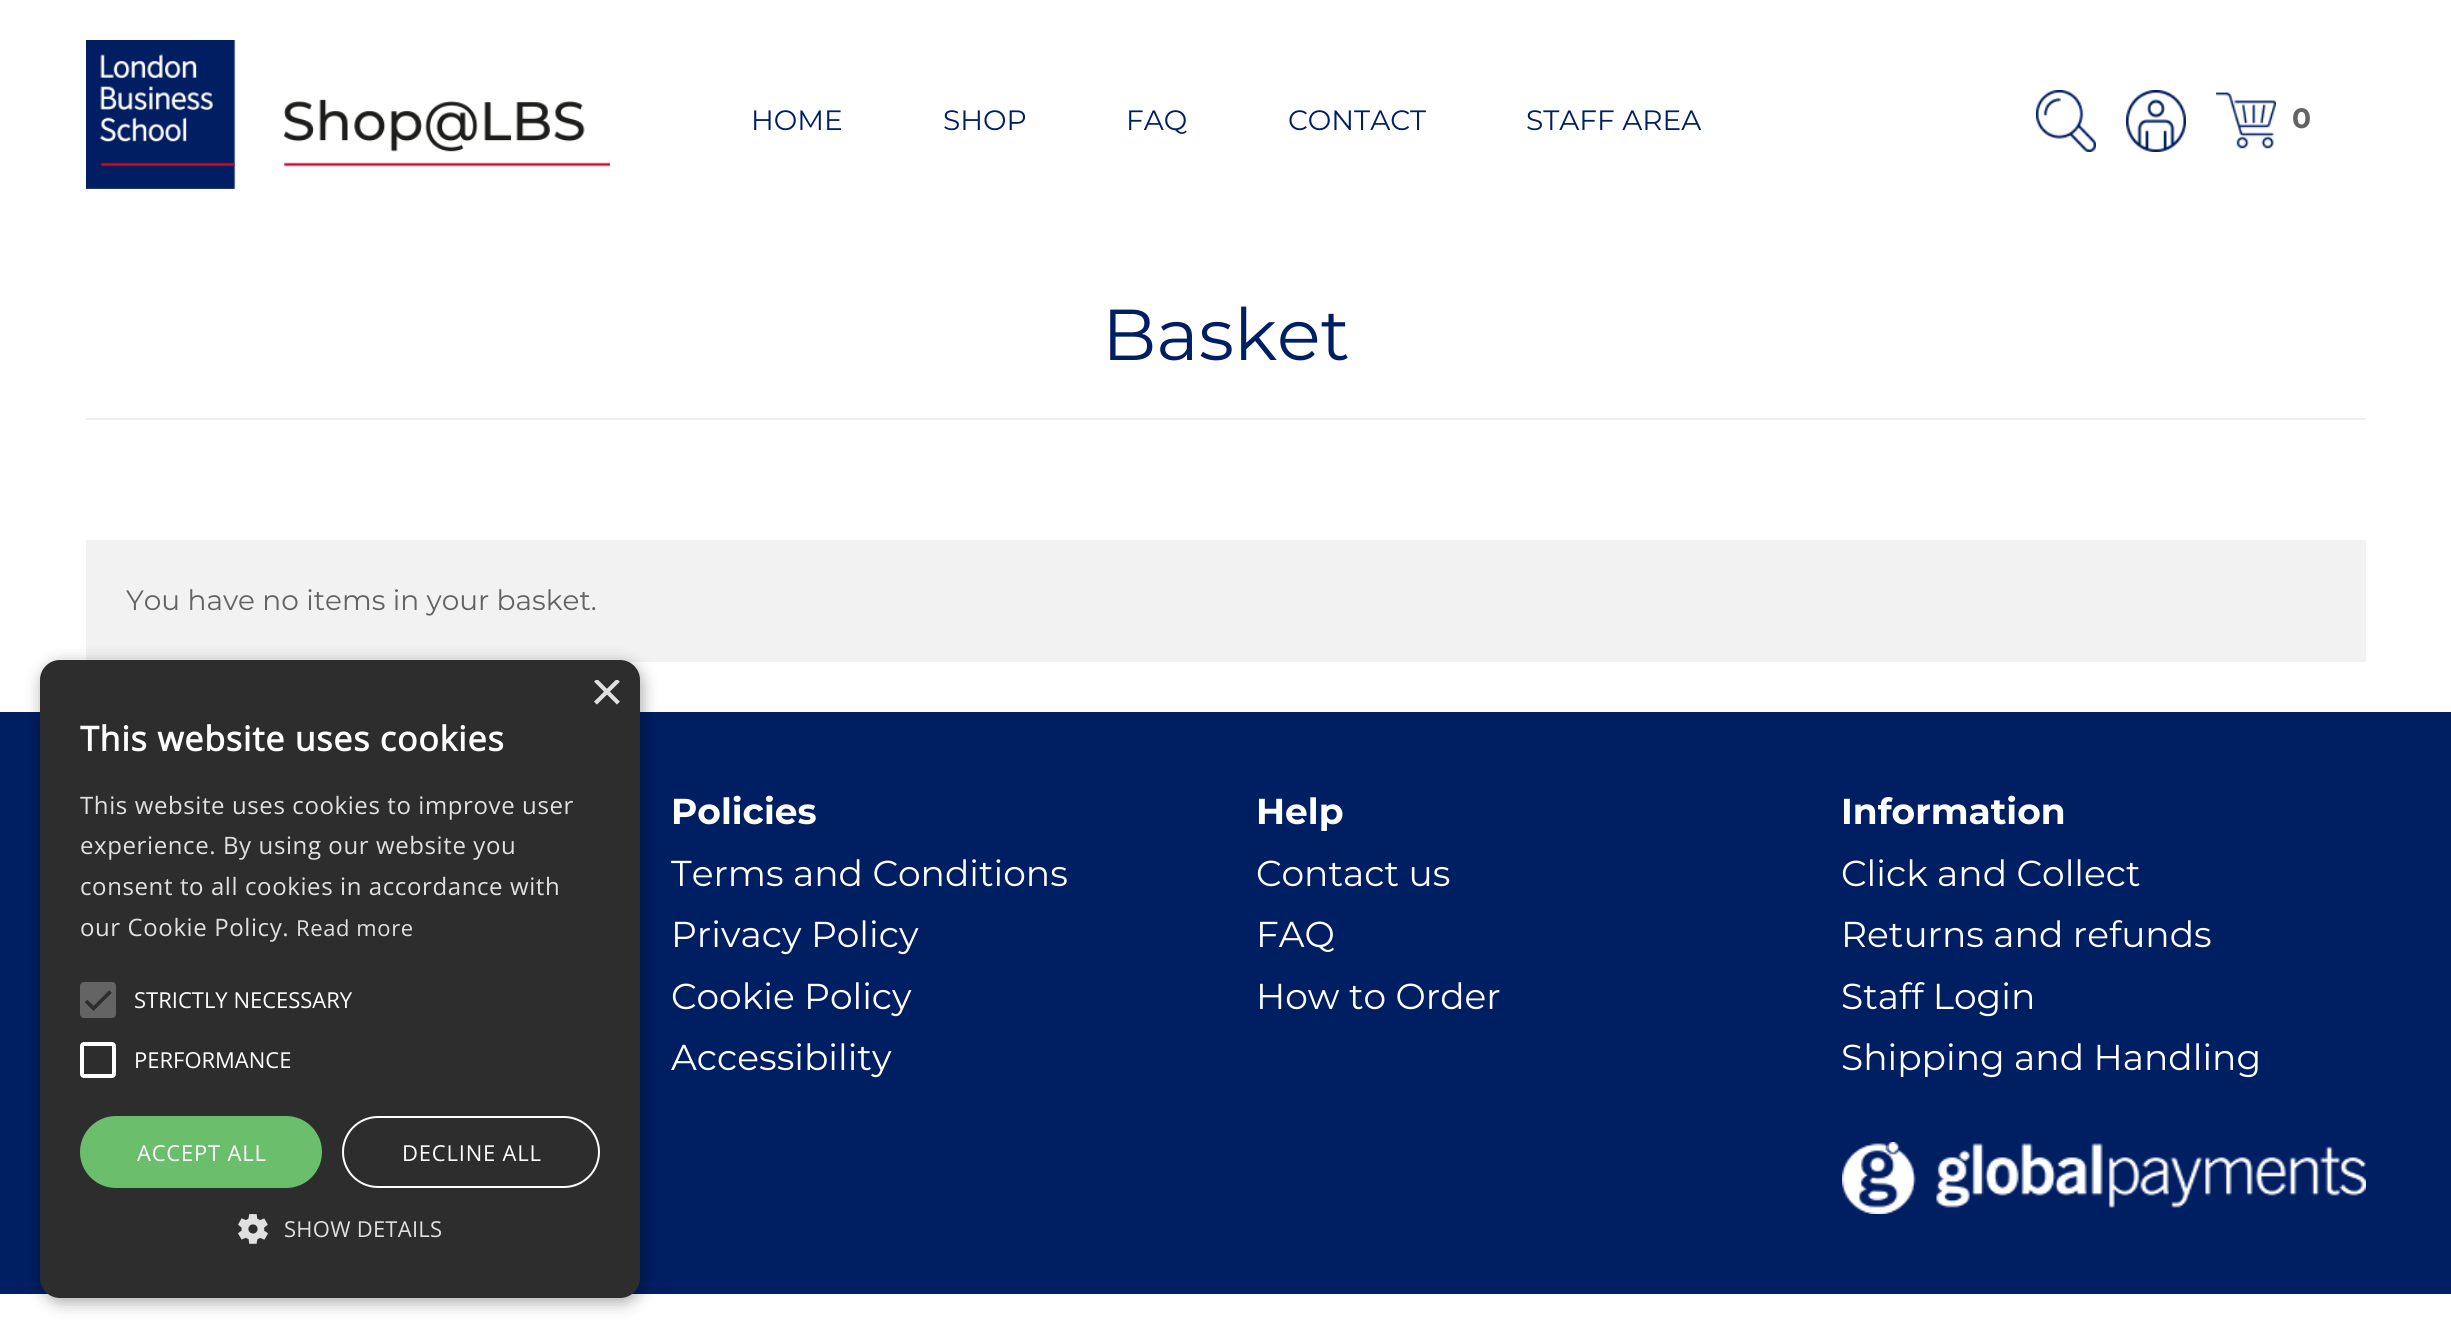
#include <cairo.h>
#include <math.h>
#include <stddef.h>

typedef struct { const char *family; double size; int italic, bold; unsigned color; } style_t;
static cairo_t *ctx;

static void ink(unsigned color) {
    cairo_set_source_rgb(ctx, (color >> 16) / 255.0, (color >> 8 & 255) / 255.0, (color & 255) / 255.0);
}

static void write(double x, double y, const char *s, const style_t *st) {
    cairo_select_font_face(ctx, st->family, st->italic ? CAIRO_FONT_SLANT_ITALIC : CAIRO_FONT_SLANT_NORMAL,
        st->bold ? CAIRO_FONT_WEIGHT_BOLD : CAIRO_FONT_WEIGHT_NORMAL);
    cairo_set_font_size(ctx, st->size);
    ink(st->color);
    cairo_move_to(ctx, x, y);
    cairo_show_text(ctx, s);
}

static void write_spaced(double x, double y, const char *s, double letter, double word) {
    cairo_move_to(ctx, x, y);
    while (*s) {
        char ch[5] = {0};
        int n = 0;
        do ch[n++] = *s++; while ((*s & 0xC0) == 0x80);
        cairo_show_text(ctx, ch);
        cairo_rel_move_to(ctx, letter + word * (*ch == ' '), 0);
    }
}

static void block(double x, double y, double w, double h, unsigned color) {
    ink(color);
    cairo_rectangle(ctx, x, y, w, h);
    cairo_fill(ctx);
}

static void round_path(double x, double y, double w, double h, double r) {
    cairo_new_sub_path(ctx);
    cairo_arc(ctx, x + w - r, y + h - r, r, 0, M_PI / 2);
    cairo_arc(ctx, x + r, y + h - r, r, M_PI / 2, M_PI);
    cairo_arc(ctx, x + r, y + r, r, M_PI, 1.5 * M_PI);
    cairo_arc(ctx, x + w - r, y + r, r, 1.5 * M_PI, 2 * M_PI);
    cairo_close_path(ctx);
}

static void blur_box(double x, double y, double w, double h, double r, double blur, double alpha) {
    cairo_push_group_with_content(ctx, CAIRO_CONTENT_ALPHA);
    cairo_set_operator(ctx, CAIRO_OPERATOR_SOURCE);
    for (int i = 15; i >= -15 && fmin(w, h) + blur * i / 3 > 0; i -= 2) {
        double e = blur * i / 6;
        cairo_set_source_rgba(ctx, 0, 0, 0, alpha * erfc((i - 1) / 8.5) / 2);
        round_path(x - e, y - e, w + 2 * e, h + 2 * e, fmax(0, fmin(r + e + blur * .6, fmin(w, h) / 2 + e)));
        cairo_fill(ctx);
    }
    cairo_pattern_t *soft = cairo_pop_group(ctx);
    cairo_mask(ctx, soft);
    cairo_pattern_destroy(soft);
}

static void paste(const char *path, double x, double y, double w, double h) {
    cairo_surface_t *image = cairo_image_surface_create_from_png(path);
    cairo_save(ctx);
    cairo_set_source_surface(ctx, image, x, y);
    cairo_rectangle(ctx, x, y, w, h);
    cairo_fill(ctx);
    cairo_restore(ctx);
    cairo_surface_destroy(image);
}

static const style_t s1 = {"Montserrat", 28, 0, 0, 0x001e62};
static const style_t s2 = {"Montserrat", 28, 0, 1, 0x636363};
static const style_t s3 = {"Montserrat", 72, 0, 0, 0x001e62};
static const style_t s4 = {"Montserrat", 28, 0, 0, 0x636363};
static const style_t s5 = {"Liberation Sans", 58, 0, 0, 0xe0e0e0};
static const style_t s6 = {"Open Sans", 22, 0, 0, 0xffffff};
static const style_t s7 = {"Montserrat", 36, 0, 1, 0xffffff};
static const style_t s8 = {"Montserrat", 36, 0, 0, 0xffffff};

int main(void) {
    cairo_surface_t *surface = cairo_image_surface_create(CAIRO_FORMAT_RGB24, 2451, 1338);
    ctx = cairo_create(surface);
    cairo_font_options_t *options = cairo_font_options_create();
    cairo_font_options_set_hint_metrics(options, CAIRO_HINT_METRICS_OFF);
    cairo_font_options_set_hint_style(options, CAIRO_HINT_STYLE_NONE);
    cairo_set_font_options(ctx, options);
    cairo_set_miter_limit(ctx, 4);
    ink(0xffffff);
    cairo_paint(ctx);
    paste("pic1.png", 86, 40, 524, 149);
    write(751, 130, "HOME", &s1);
    write(943, 130, "SHOP", &s1);
    write(1126, 130, "FAQ", &s1);
    write(1288, 130, "CONTACT", &s1);
    write(1526, 130, "STAFF AREA", &s1);
    paste("pic2.png", 2036, 90, 60, 62);
    paste("pic3.png", 2126, 90, 60, 62);
    paste("pic4.png", 2216, 92, 60, 57);
    write(2292, 128, "0", &s2);
    write(1102, 360, "Basket", &s3);
    block(86, 418, 2280, 2, 0xeeeeee);
    block(86, 540, 2280, 122, 0xf2f2f2);
    write(126, 610, "You have no items in your basket.", &s4);
    block(0, 712, 2451, 582, 0x001e62);
    ink(0x000000);
    blur_box(42, 664, 600, 638, 20, 8, 0.35);
    ink(0x2d2d2d);
    round_path(40, 660, 600, 638, 20);
    cairo_fill(ctx);
    cairo_save(ctx);
    cairo_rectangle(ctx, 590, 680, 30, 30);
    cairo_clip(ctx);
    write(590, 711, "×", &s5);
    cairo_restore(ctx);
    cairo_select_font_face(ctx, "Open Sans", CAIRO_FONT_SLANT_NORMAL, CAIRO_FONT_WEIGHT_BOLD);
    cairo_set_font_size(ctx, 34);
    ink(0xffffff);
    write_spaced(80, 751, "This website uses cookies", 0.8, 0);
    cairo_select_font_face(ctx, "Open Sans", CAIRO_FONT_SLANT_NORMAL, CAIRO_FONT_WEIGHT_NORMAL);
    cairo_set_font_size(ctx, 24);
    ink(0xe0e0e0);
    write_spaced(80, 814, "This website uses cookies to improve user", 0.6, 0);
    write_spaced(80, 854, "experience. By using our website you", 0.6, 0);
    write_spaced(80, 895, "consent to all cookies in accordance with", 0.6, 0);
    write_spaced(80, 936, "our Cookie Policy.", 0.6, 0);
    cairo_set_font_size(ctx, 22);
    write_spaced(296, 936, "Read more", 0.6, 0);
    ink(0x646464);
    round_path(80, 982, 36, 36, 4);
    cairo_fill(ctx);
    cairo_new_path(ctx);
    cairo_move_to(ctx, 86, 1001);
    cairo_line_to(ctx, 93.5, 1008.5);
    cairo_line_to(ctx, 110.5, 991.5);
    ink(0x2d2d2d);
    cairo_set_line_width(ctx, 3.6);
    cairo_stroke(ctx);
    write(134, 1008, "STRICTLY NECESSARY", &s6);
    round_path(82, 1044, 32, 32, 2);
    cairo_set_line_width(ctx, 4);
    cairo_stroke(ctx);
    write(134, 1068, "PERFORMANCE", &s6);
    ink(0x6bbe6b);
    round_path(80, 1116, 242, 72, 36);
    cairo_fill(ctx);
    ink(0xffffff);
    write_spaced(137, 1161, "ACCEPT ALL", 0.8, 0);
    round_path(343, 1117, 256, 70, 35);
    cairo_set_line_width(ctx, 2);
    cairo_stroke(ctx);
    write_spaced(402, 1161, "DECLINE ALL", 0.8, 0);
    paste("pic5.png", 238, 1214, 30, 30);
    ink(0xe0e0e0);
    write_spaced(284, 1237, "SHOW DETAILS", 0.25, 0);
    write(671, 824, "Policies", &s7);
    write(671, 886, "Terms and Conditions", &s8);
    write(671, 947, "Privacy Policy", &s8);
    write(671, 1009, "Cookie Policy", &s8);
    write(671, 1070, "Accessibility", &s8);
    write(1256, 824, "Help", &s7);
    write(1256, 886, "Contact us", &s8);
    write(1256, 947, "FAQ", &s8);
    write(1256, 1009, "How to Order", &s8);
    write(1841, 824, "Information", &s7);
    write(1841, 886, "Click and Collect", &s8);
    write(1841, 947, "Returns and refunds", &s8);
    write(1841, 1009, "Staff Login", &s8);
    write(1841, 1070, "Shipping and Handling", &s8);
    paste("pic6.png", 1842, 1142, 524, 72);
    cairo_surface_write_to_png(surface, "screenshot.png");
    cairo_font_options_destroy(options);
    cairo_destroy(ctx);
    cairo_surface_destroy(surface);
    return 0;
}
